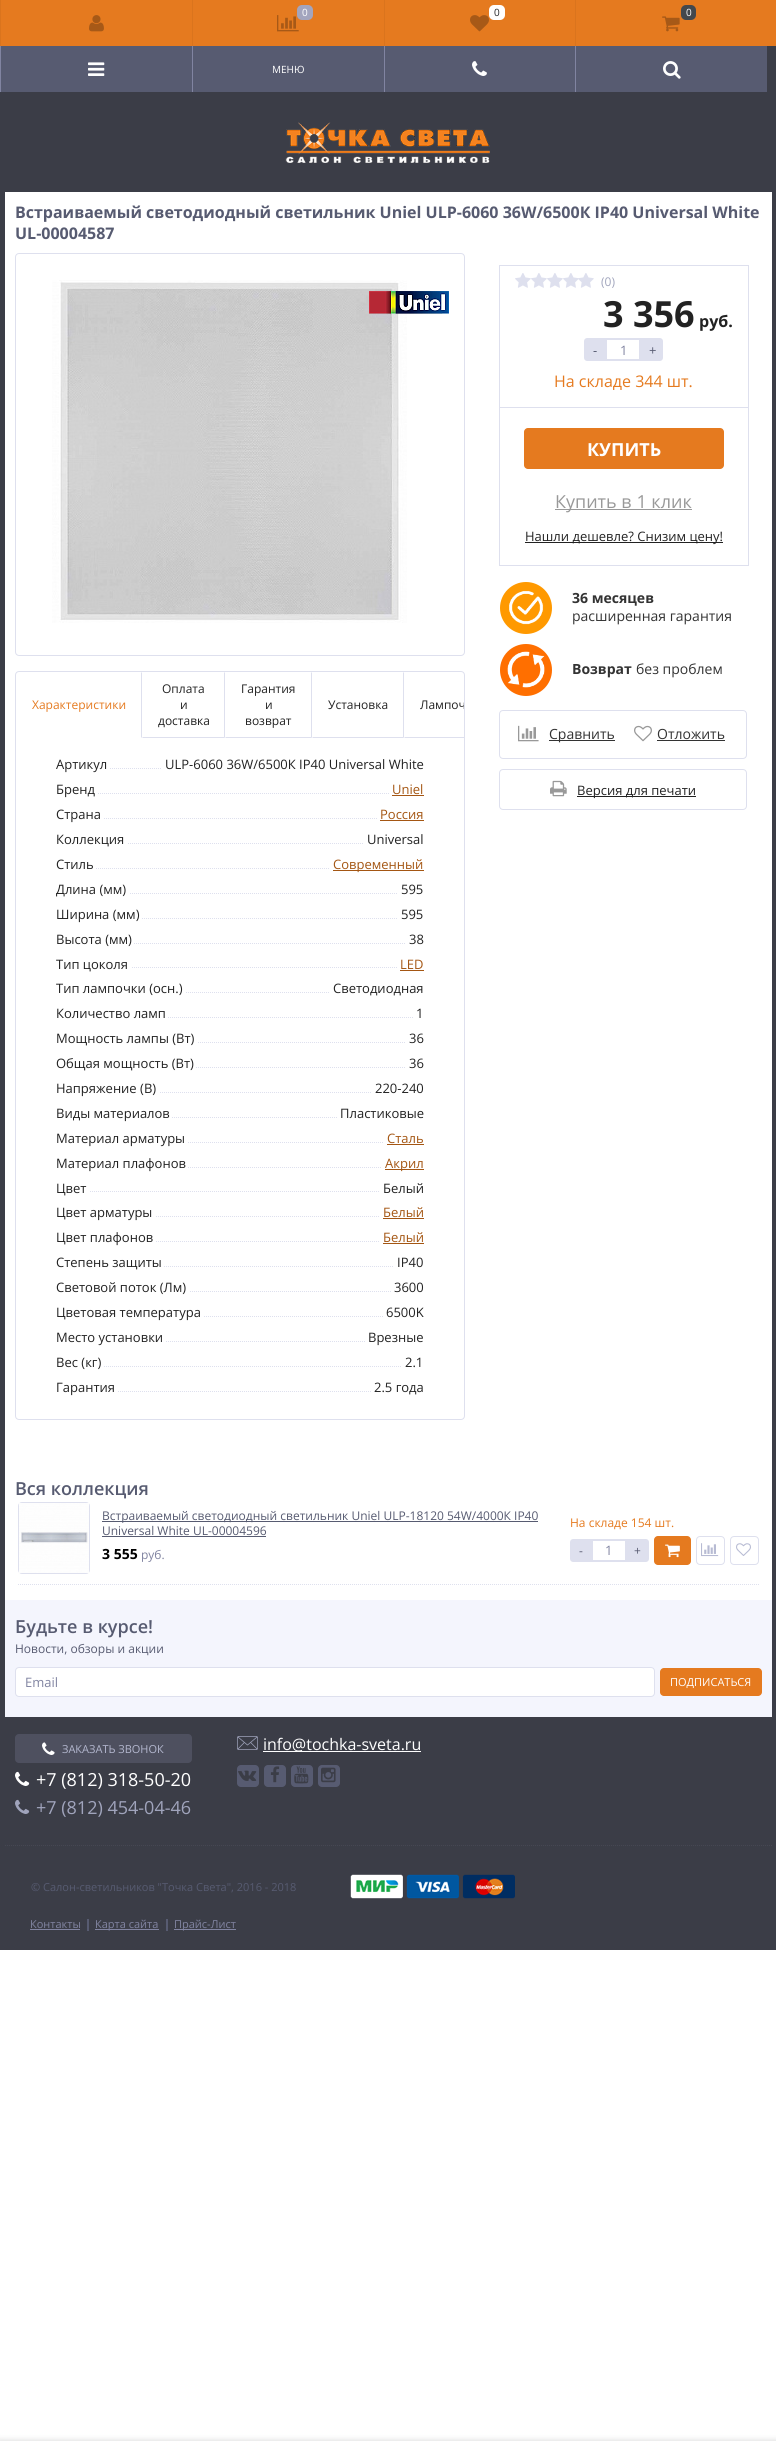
#include <cairo.h>
#include <math.h>
#include <stddef.h>

typedef struct { const char *family; double size; int italic, bold; unsigned color; } style_t;
static cairo_t *ctx;

static void ink(unsigned color) {
    cairo_set_source_rgb(ctx, (color >> 16) / 255.0, (color >> 8 & 255) / 255.0, (color & 255) / 255.0);
}

static void write(double x, double y, const char *s, const style_t *st) {
    cairo_select_font_face(ctx, st->family, st->italic ? CAIRO_FONT_SLANT_ITALIC : CAIRO_FONT_SLANT_NORMAL,
        st->bold ? CAIRO_FONT_WEIGHT_BOLD : CAIRO_FONT_WEIGHT_NORMAL);
    cairo_set_font_size(ctx, st->size);
    ink(st->color);
    cairo_move_to(ctx, x, y);
    cairo_show_text(ctx, s);
}

static void block(double x, double y, double w, double h, unsigned color) {
    ink(color);
    cairo_rectangle(ctx, x, y, w, h);
    cairo_fill(ctx);
}

static void round_path(double x, double y, double w, double h, double r) {
    cairo_new_sub_path(ctx);
    cairo_arc(ctx, x + w - r, y + h - r, r, 0, M_PI / 2);
    cairo_arc(ctx, x + r, y + h - r, r, M_PI / 2, M_PI);
    cairo_arc(ctx, x + r, y + r, r, M_PI, 1.5 * M_PI);
    cairo_arc(ctx, x + w - r, y + r, r, 1.5 * M_PI, 2 * M_PI);
    cairo_close_path(ctx);
}

static void blur_box(double x, double y, double w, double h, double r, double blur, double alpha) {
    cairo_push_group_with_content(ctx, CAIRO_CONTENT_ALPHA);
    cairo_set_operator(ctx, CAIRO_OPERATOR_SOURCE);
    for (int i = 15; i >= -15 && fmin(w, h) + blur * i / 3 > 0; i -= 2) {
        double e = blur * i / 6;
        cairo_set_source_rgba(ctx, 0, 0, 0, alpha * erfc((i - 1) / 8.5) / 2);
        round_path(x - e, y - e, w + 2 * e, h + 2 * e, fmax(0, fmin(r + e + blur * .6, fmin(w, h) / 2 + e)));
        cairo_fill(ctx);
    }
    cairo_pattern_t *soft = cairo_pop_group(ctx);
    cairo_mask(ctx, soft);
    cairo_pattern_destroy(soft);
}

static void paste(const char *path, double x, double y, double w, double h) {
    cairo_surface_t *image = cairo_image_surface_create_from_png(path);
    cairo_save(ctx);
    cairo_set_source_surface(ctx, image, x, y);
    cairo_rectangle(ctx, x, y, w, h);
    cairo_fill(ctx);
    cairo_restore(ctx);
    cairo_surface_destroy(image);
}

static const style_t s1 = {"Open Sans", 10, 0, 0, 0xffffff};
static const style_t s2 = {"Open Sans", 10, 0, 0, 0x23262a};
static const style_t s3 = {"Open Sans", 11, 0, 0, 0xb4b8cf};
static const style_t s4 = {"Open Sans", 18, 0, 0, 0xffffff};
static const style_t s5 = {"Open Sans", 18, 0, 0, 0xa0a4bc};
static const style_t s6 = {"Open Sans", 16, 0, 0, 0xffffff};
static const style_t s7 = {"Open Sans", 11, 0, 0, 0x575b71};
static const style_t s8 = {"Open Sans", 11, 0, 0, 0x8184a1};
static const style_t s9 = {"Open Sans", 16, 0, 1, 0x575b71};
static const style_t s10 = {"Open Sans", 12, 0, 0, 0xa0a4bc};
static const style_t s11 = {"Open Sans", 36, 0, 1, 0x222222};
static const style_t s12 = {"Open Sans", 16, 0, 1, 0x222222};
static const style_t s13 = {"Open Sans", 13, 0, 0, 0x575b71};
static const style_t s14 = {"Open Sans", 13, 0, 0, 0x8184a1};
static const style_t s15 = {"Open Sans", 16, 0, 0, 0xe57a1f};
static const style_t s16 = {"Open Sans", 18, 0, 1, 0xffffff};
static const style_t s17 = {"Open Sans", 18, 0, 0, 0x999999};
static const style_t s18 = {"Open Sans", 13, 0, 0, 0x222222};
static const style_t s19 = {"Open Sans", 14, 0, 1, 0x333333};
static const style_t s20 = {"Open Sans", 14, 0, 0, 0x333333};
static const style_t s21 = {"Open Sans", 12, 0, 0, 0xe57a1f};
static const style_t s22 = {"Open Sans", 12, 0, 0, 0x222222};
static const style_t s23 = {"Open Sans", 13, 0, 0, 0xa45613};
static const style_t s24 = {"Open Sans SemiBold", 18, 0, 0, 0x575b71};
static const style_t s25 = {"Open Sans", 12, 0, 0, 0x575b71};
static const style_t s26 = {"Open Sans", 14, 0, 1, 0x000000};
static const style_t s27 = {"Open Sans", 12, 0, 0, 0x8184a1};
static const style_t s28 = {"Open Sans", 11, 0, 0, 0xffffff};

int main(void) {
    cairo_surface_t *surface = cairo_image_surface_create(CAIRO_FORMAT_RGB24, 776, 2441);
    ctx = cairo_create(surface);
    cairo_font_options_t *options = cairo_font_options_create();
    cairo_font_options_set_hint_metrics(options, CAIRO_HINT_METRICS_OFF);
    cairo_font_options_set_hint_style(options, CAIRO_HINT_STYLE_NONE);
    cairo_set_font_options(ctx, options);
    cairo_set_miter_limit(ctx, 4);
    ink(0xffffff);
    cairo_paint(ctx);
    block(0, 46, 776, 1904, 0x3b3d47);
    block(1, 0, 775, 46, 0xe57a1f);
    block(0, 0, 1, 46, 0xda741d);
    block(192, 0, 1, 46, 0xda741d);
    paste("pic1.png", 89, 15, 15, 17);
    block(384, 0, 1, 46, 0xda741d);
    paste("pic2.png", 277, 15, 22, 17);
    ink(0xa3a5be);
    round_path(297, 5, 16, 15, 5);
    cairo_fill(ctx);
    write(302, 16, "0", &s1);
    block(575, 0, 1, 46, 0xda741d);
    ink(0xffffff);
    round_path(489, 5, 16, 15, 5);
    cairo_fill(ctx);
    write(494, 16, "0", &s2);
    paste("pic3.png", 470, 15, 19, 17);
    ink(0x43484d);
    round_path(681, 5, 15, 15, 5);
    cairo_fill(ctx);
    write(686, 16, "0", &s1);
    paste("pic4.png", 662, 16, 18, 16);
    cairo_new_path(ctx);
    cairo_move_to(ctx, 5, 1845.5);
    cairo_line_to(ctx, 772, 1845.5);
    ink(0x464853);
    cairo_set_line_width(ctx, 1);
    cairo_set_dash(ctx, (double[]){1, 1}, 2, 0);
    cairo_stroke(ctx);
    ink(0x4e505f);
    round_path(15, 1734, 177, 29, 4);
    cairo_fill(ctx);
    paste("pic5.png", 42, 1742, 13, 13);
    write(62, 1753, "ЗАКАЗАТЬ ЗВОНОК", &s3);
    paste("pic6.png", 15, 1771, 15, 15);
    write(36, 1786, "+7 (812) 318-50-20", &s4);
    paste("pic7.png", 15, 1799, 15, 15);
    write(36, 1814, "+7 (812) 454-04-46", &s5);
    paste("pic8.png", 237, 1736, 21, 14);
    block(263, 1751, 158, 1, 0xffffff);
    write(263, 1750, "info@tochka-sveta.ru", &s6);
    ink(0x575b71);
    round_path(237, 1765, 22, 22, 4);
    cairo_fill(ctx);
    paste("pic9.png", 238, 1770, 19, 11);
    round_path(264, 1765, 22, 22, 4);
    cairo_fill(ctx);
    paste("pic10.png", 270, 1766, 10, 17);
    round_path(291, 1765, 22, 22, 4);
    cairo_fill(ctx);
    paste("pic11.png", 294, 1766, 15, 18);
    round_path(318, 1765, 22, 22, 4);
    cairo_fill(ctx);
    paste("pic12.png", 321, 1767, 15, 16);
    write(31, 1891, "© Салон-светильников \"Точка Света\", 2016 - 2018", &s7);
    paste("pic13.png", 350, 1874, 165, 25);
    write(30, 1928, "Контакты", &s8);
    block(30, 1929, 50, 1, 0x8184a1);
    block(87, 1919, 2, 12, 0x575b71);
    block(95, 1929, 64, 1, 0x8184a1);
    write(95, 1928, "Карта сайта", &s8);
    block(166, 1919, 2, 12, 0x575b71);
    block(174, 1929, 62, 1, 0x8184a1);
    write(174, 1928, "Прайс-Лист", &s8);
    block(1, 46, 766, 46, 0x575b71);
    block(0, 46, 1, 46, 0x8184a1);
    paste("pic14.png", 88, 62, 17, 14);
    block(192, 46, 1, 46, 0x8184a1);
    write(272, 73, "МЕНЮ", &s1);
    block(384, 46, 1, 46, 0x8184a1);
    paste("pic15.png", 472, 61, 15, 15);
    block(575, 46, 1, 46, 0x8184a1);
    paste("pic16.png", 663, 61, 18, 18);
    paste("pic17.png", 285, 122, 205, 41);
    block(5, 192, 767, 1408, 0xffffff);
    write(15, 218, "Встраиваемый светодиодный светильник Uniel ULP-6060 36W/6500К IP40 Universal White", &s9);
    write(15, 239, "UL-00004587", &s9);
    cairo_rectangle(ctx, 499.5, 265.5, 249, 300);
    ink(0xdee0ee);
    cairo_set_dash(ctx, NULL, 0, 0);
    cairo_stroke(ctx);
    block(500, 407, 248, 1, 0xdee0ee);
    paste("pic18.png", 515, 273, 16, 15);
    paste("pic18.png", 531, 273, 16, 15);
    paste("pic18.png", 547, 273, 16, 15);
    paste("pic18.png", 563, 273, 16, 15);
    paste("pic19.png", 578, 273, 16, 15);
    write(601, 286, "(0)", &s10);
    write(603, 327, "3 356", &s11);
    write(699, 327, "руб.", &s12);
    ink(0xdee0ee);
    cairo_new_path(ctx);
    cairo_move_to(ctx, 587, 338);
    cairo_line_to(ctx, 606, 338);
    cairo_line_to(ctx, 606, 361);
    cairo_line_to(ctx, 587, 361);
    cairo_curve_to(ctx, 585.5, 361, 584, 359.5, 584, 358);
    cairo_line_to(ctx, 584, 341);
    cairo_curve_to(ctx, 584, 339.5, 585.5, 338, 587, 338);
    cairo_close_path(ctx);
    cairo_fill(ctx);
    write(593, 355, "-", &s13);
    block(606, 338, 35, 2, 0xdee0ee);
    block(639, 338, 2, 23, 0xdee0ee);
    block(606, 359, 35, 2, 0xdee0ee);
    block(606, 338, 1, 23, 0xdee0ee);
    write(620, 355, "1", &s14);
    ink(0xdee0ee);
    cairo_new_path(ctx);
    cairo_move_to(ctx, 641, 338);
    cairo_line_to(ctx, 660, 338);
    cairo_curve_to(ctx, 661.5, 338, 663, 339.5, 663, 341);
    cairo_line_to(ctx, 663, 358);
    cairo_curve_to(ctx, 663, 359.5, 661.5, 361, 660, 361);
    cairo_line_to(ctx, 641, 361);
    cairo_close_path(ctx);
    cairo_fill(ctx);
    write(649, 355, "+", &s13);
    write(554, 387, "На складе 344 шт.", &s15);
    round_path(524, 428, 200, 41, 4);
    cairo_fill(ctx);
    write(587, 456, "КУПИТЬ", &s16);
    block(555, 509, 137, 1, 0x999999);
    write(555, 508, "Купить в 1 клик", &s17);
    block(525, 542, 198, 1, 0x222222);
    write(525, 541, "Нашли дешевле? Снизим цену!", &s18);
    ink(0xff9900);
    cairo_new_path(ctx);
    cairo_arc(ctx, 526, 608, 26, 0, 2 * M_PI);
    cairo_fill(ctx);
    paste("pic20.png", 509, 590, 35, 35);
    write(572, 603, "36 месяцев", &s19);
    write(572, 621, "расширенная гарантия", &s20);
    ink(0xff6f00);
    cairo_new_path(ctx);
    cairo_arc(ctx, 526, 670, 26, 0, 2 * M_PI);
    cairo_fill(ctx);
    paste("pic21.png", 507, 651, 38, 37);
    write(572, 674, "Возврат", &s19);
    write(636, 674, "без проблем", &s20);
    round_path(499.5, 710.5, 247, 48, 3.5);
    ink(0xdee0ee);
    cairo_stroke(ctx);
    paste("pic22.png", 518, 725, 21, 17);
    block(549, 740, 66, 1, 0x333333);
    write(549, 739, "Сравнить", &s20);
    paste("pic23.png", 634, 725, 18, 17);
    write(657, 739, "Отложить", &s20);
    block(657, 740, 68, 1, 0x333333);
    round_path(499.5, 769.5, 247, 40, 3.5);
    ink(0xdee0ee);
    cairo_stroke(ctx);
    paste("pic24.png", 550, 780, 17, 17);
    block(577, 796, 119, 1, 0x222222);
    write(577, 795, "Версия для печати", &s18);
    round_path(15.5, 253.5, 449, 402, 3.5);
    ink(0xdee0ee);
    cairo_stroke(ctx);
    paste("pic25.png", 52, 280, 355, 343);
    paste("pic26.png", 369, 291, 80, 23);
    round_path(15.5, 671.5, 449, 748, 3.5);
    cairo_stroke(ctx);
    cairo_new_path(ctx);
    cairo_move_to(ctx, 142, 672);
    cairo_line_to(ctx, 142, 738);
    cairo_line_to(ctx, 141, 737);
    cairo_line_to(ctx, 141, 673);
    cairo_close_path(ctx);
    cairo_fill(ctx);
    write(32, 709, "Характеристики", &s21);
    ink(0xdee0ee);
    cairo_new_path(ctx);
    cairo_move_to(ctx, 225, 672);
    cairo_line_to(ctx, 225, 738);
    cairo_line_to(ctx, 224, 737);
    cairo_line_to(ctx, 224, 673);
    cairo_close_path(ctx);
    cairo_fill(ctx);
    cairo_new_path(ctx);
    cairo_move_to(ctx, 225, 738);
    cairo_line_to(ctx, 142, 738);
    cairo_line_to(ctx, 143, 737);
    cairo_line_to(ctx, 224, 737);
    cairo_close_path(ctx);
    cairo_fill(ctx);
    write(162, 693, "Оплата", &s22);
    write(180, 709, "и", &s22);
    write(158, 725, "доставка", &s22);
    ink(0xdee0ee);
    cairo_new_path(ctx);
    cairo_move_to(ctx, 312, 672);
    cairo_line_to(ctx, 312, 738);
    cairo_line_to(ctx, 311, 737);
    cairo_line_to(ctx, 311, 673);
    cairo_close_path(ctx);
    cairo_fill(ctx);
    cairo_new_path(ctx);
    cairo_move_to(ctx, 312, 738);
    cairo_line_to(ctx, 225, 738);
    cairo_line_to(ctx, 226, 737);
    cairo_line_to(ctx, 311, 737);
    cairo_close_path(ctx);
    cairo_fill(ctx);
    write(241, 693, "Гарантия", &s22);
    write(265, 709, "и", &s22);
    write(245, 725, "возврат", &s22);
    ink(0xdee0ee);
    cairo_new_path(ctx);
    cairo_move_to(ctx, 404, 672);
    cairo_line_to(ctx, 404, 738);
    cairo_line_to(ctx, 403, 737);
    cairo_line_to(ctx, 403, 673);
    cairo_close_path(ctx);
    cairo_fill(ctx);
    cairo_new_path(ctx);
    cairo_move_to(ctx, 404, 738);
    cairo_line_to(ctx, 312, 738);
    cairo_line_to(ctx, 313, 737);
    cairo_line_to(ctx, 403, 737);
    cairo_close_path(ctx);
    cairo_fill(ctx);
    write(328, 709, "Установка", &s22);
    cairo_save(ctx);
    cairo_rectangle(ctx, 16, 672, 448, 66);
    cairo_clip(ctx);
    ink(0xdee0ee);
    cairo_new_path(ctx);
    cairo_move_to(ctx, 496, 738);
    cairo_line_to(ctx, 404, 738);
    cairo_line_to(ctx, 405, 737);
    cairo_line_to(ctx, 495, 737);
    cairo_close_path(ctx);
    cairo_fill(ctx);
    write(420, 709, "Лампоч", &s22);
    cairo_restore(ctx);
    cairo_new_path(ctx);
    cairo_move_to(ctx, 56, 768.5);
    cairo_line_to(ctx, 424, 768.5);
    ink(0xdee0ee);
    cairo_set_dash(ctx, (double[]){1, 1}, 2, 0);
    cairo_stroke(ctx);
    block(56, 768, 53, 1, 0xffffff);
    write(56, 769, "Артикул", &s18);
    block(162, 768, 261, 1, 0xffffff);
    write(165, 769, "ULP-6060 36W/6500К IP40 Universal White", &s18);
    cairo_new_path(ctx);
    cairo_move_to(ctx, 56, 793.5);
    cairo_line_to(ctx, 424, 793.5);
    ink(0xdee0ee);
    cairo_stroke(ctx);
    block(56, 793, 41, 1, 0xffffff);
    write(56, 794, "Бренд", &s18);
    block(390, 793, 33, 1, 0xffffff);
    write(392, 794, "Uniel", &s23);
    block(392, 795, 32, 1, 0xa45613);
    cairo_new_path(ctx);
    cairo_move_to(ctx, 56, 818.5);
    cairo_line_to(ctx, 424, 818.5);
    ink(0xdee0ee);
    cairo_stroke(ctx);
    block(56, 818, 47, 1, 0xffffff);
    write(56, 819, "Страна", &s18);
    block(378, 818, 45, 1, 0xffffff);
    write(380, 819, "Россия", &s23);
    block(380, 820, 44, 1, 0xa45613);
    cairo_new_path(ctx);
    cairo_move_to(ctx, 56, 843.5);
    cairo_line_to(ctx, 424, 843.5);
    ink(0xdee0ee);
    cairo_stroke(ctx);
    block(56, 843, 71, 1, 0xffffff);
    write(56, 844, "Коллекция", &s18);
    block(364, 843, 59, 1, 0xffffff);
    write(367, 844, "Universal", &s18);
    cairo_new_path(ctx);
    cairo_move_to(ctx, 56, 868.5);
    cairo_line_to(ctx, 424, 868.5);
    ink(0xdee0ee);
    cairo_stroke(ctx);
    block(56, 868, 39, 1, 0xffffff);
    write(56, 869, "Стиль", &s18);
    block(330, 868, 93, 1, 0xffffff);
    block(333, 870, 91, 1, 0xa45613);
    write(333, 869, "Современный", &s23);
    cairo_new_path(ctx);
    cairo_move_to(ctx, 56, 893.5);
    cairo_line_to(ctx, 424, 893.5);
    ink(0xdee0ee);
    cairo_stroke(ctx);
    block(56, 893, 73, 1, 0xffffff);
    cairo_save(ctx);
    cairo_rectangle(ctx, 56, 751, 368, 648);
    cairo_clip(ctx);
    write(56, 894, "Длина (мм)", &s18);
    cairo_restore(ctx);
    block(398, 893, 25, 1, 0xffffff);
    write(401, 894, "595", &s18);
    cairo_new_path(ctx);
    cairo_move_to(ctx, 56, 918.5);
    cairo_line_to(ctx, 424, 918.5);
    ink(0xdee0ee);
    cairo_stroke(ctx);
    block(56, 918, 85, 1, 0xffffff);
    write(56, 919, "Ширина (мм)", &s18);
    block(398, 918, 25, 1, 0xffffff);
    write(401, 919, "595", &s18);
    cairo_new_path(ctx);
    cairo_move_to(ctx, 56, 943.5);
    cairo_line_to(ctx, 424, 943.5);
    ink(0xdee0ee);
    cairo_stroke(ctx);
    block(56, 943, 77, 1, 0xffffff);
    write(56, 944, "Высота (мм)", &s18);
    block(406, 943, 17, 1, 0xffffff);
    write(409, 944, "38", &s18);
    cairo_new_path(ctx);
    cairo_move_to(ctx, 56, 967.5);
    cairo_line_to(ctx, 424, 967.5);
    ink(0xdee0ee);
    cairo_stroke(ctx);
    block(56, 967, 75, 1, 0xffffff);
    write(56, 969, "Тип цоколя", &s18);
    block(398, 967, 25, 1, 0xffffff);
    write(400, 969, "LED", &s23);
    block(400, 970, 24, 1, 0xa45613);
    cairo_new_path(ctx);
    cairo_move_to(ctx, 56, 992.5);
    cairo_line_to(ctx, 424, 992.5);
    ink(0xdee0ee);
    cairo_stroke(ctx);
    block(56, 992, 129, 1, 0xffffff);
    write(56, 993, "Тип лампочки (осн.)", &s18);
    block(330, 992, 93, 1, 0xffffff);
    write(333, 993, "Светодиодная", &s18);
    cairo_new_path(ctx);
    cairo_move_to(ctx, 56, 1017.5);
    cairo_line_to(ctx, 424, 1017.5);
    ink(0xdee0ee);
    cairo_stroke(ctx);
    block(56, 1017, 111, 1, 0xffffff);
    write(56, 1018, "Количество ламп", &s18);
    block(414, 1017, 9, 1, 0xffffff);
    write(416, 1018, "1", &s18);
    cairo_new_path(ctx);
    cairo_move_to(ctx, 56, 1042.5);
    cairo_line_to(ctx, 424, 1042.5);
    ink(0xdee0ee);
    cairo_stroke(ctx);
    block(56, 1042, 141, 1, 0xffffff);
    write(56, 1043, "Мощность лампы (Вт)", &s18);
    block(406, 1042, 17, 1, 0xffffff);
    write(409, 1043, "36", &s18);
    cairo_new_path(ctx);
    cairo_move_to(ctx, 56, 1067.5);
    cairo_line_to(ctx, 424, 1067.5);
    ink(0xdee0ee);
    cairo_stroke(ctx);
    block(56, 1067, 139, 1, 0xffffff);
    write(56, 1068, "Общая мощность (Вт)", &s18);
    block(406, 1067, 17, 1, 0xffffff);
    write(409, 1068, "36", &s18);
    cairo_new_path(ctx);
    cairo_move_to(ctx, 56, 1092.5);
    cairo_line_to(ctx, 424, 1092.5);
    ink(0xdee0ee);
    cairo_stroke(ctx);
    block(56, 1092, 103, 1, 0xffffff);
    write(56, 1093, "Напряжение (В)", &s18);
    block(372, 1092, 51, 1, 0xffffff);
    write(375, 1093, "220-240", &s18);
    cairo_new_path(ctx);
    cairo_move_to(ctx, 56, 1117.5);
    cairo_line_to(ctx, 424, 1117.5);
    ink(0xdee0ee);
    cairo_stroke(ctx);
    block(56, 1117, 115, 1, 0xffffff);
    write(56, 1118, "Виды материалов", &s18);
    block(338, 1117, 85, 1, 0xffffff);
    write(340, 1118, "Пластиковые", &s18);
    cairo_new_path(ctx);
    cairo_move_to(ctx, 56, 1142.5);
    cairo_line_to(ctx, 424, 1142.5);
    ink(0xdee0ee);
    cairo_stroke(ctx);
    block(56, 1142, 131, 1, 0xffffff);
    write(56, 1143, "Материал арматуры", &s18);
    block(384, 1142, 39, 1, 0xffffff);
    write(387, 1143, "Сталь", &s23);
    block(387, 1144, 37, 1, 0xa45613);
    cairo_new_path(ctx);
    cairo_move_to(ctx, 56, 1167.5);
    cairo_line_to(ctx, 424, 1167.5);
    ink(0xdee0ee);
    cairo_stroke(ctx);
    block(56, 1167, 131, 1, 0xffffff);
    write(56, 1168, "Материал плафонов", &s18);
    block(382, 1167, 41, 1, 0xffffff);
    block(385, 1169, 39, 1, 0xa45613);
    write(385, 1168, "Акрил", &s23);
    cairo_new_path(ctx);
    cairo_move_to(ctx, 56, 1191.5);
    cairo_line_to(ctx, 424, 1191.5);
    ink(0xdee0ee);
    cairo_stroke(ctx);
    block(56, 1191, 33, 1, 0xffffff);
    write(56, 1193, "Цвет", &s18);
    block(380, 1191, 43, 1, 0xffffff);
    write(383, 1193, "Белый", &s18);
    cairo_new_path(ctx);
    cairo_move_to(ctx, 56, 1216.5);
    cairo_line_to(ctx, 424, 1216.5);
    ink(0xdee0ee);
    cairo_stroke(ctx);
    block(56, 1216, 99, 1, 0xffffff);
    write(56, 1217, "Цвет арматуры", &s18);
    block(380, 1216, 43, 1, 0xffffff);
    write(383, 1217, "Белый", &s23);
    block(383, 1218, 41, 1, 0xa45613);
    cairo_new_path(ctx);
    cairo_move_to(ctx, 56, 1241.5);
    cairo_line_to(ctx, 424, 1241.5);
    ink(0xdee0ee);
    cairo_stroke(ctx);
    block(56, 1241, 99, 1, 0xffffff);
    write(56, 1242, "Цвет плафонов", &s18);
    block(380, 1241, 43, 1, 0xffffff);
    write(383, 1242, "Белый", &s23);
    block(383, 1243, 41, 1, 0xa45613);
    cairo_new_path(ctx);
    cairo_move_to(ctx, 56, 1266.5);
    cairo_line_to(ctx, 424, 1266.5);
    ink(0xdee0ee);
    cairo_stroke(ctx);
    block(56, 1266, 107, 1, 0xffffff);
    write(56, 1267, "Степень защиты", &s18);
    block(394, 1266, 29, 1, 0xffffff);
    write(397, 1267, "IP40", &s18);
    cairo_new_path(ctx);
    cairo_move_to(ctx, 56, 1291.5);
    cairo_line_to(ctx, 424, 1291.5);
    ink(0xdee0ee);
    cairo_stroke(ctx);
    block(56, 1291, 133, 1, 0xffffff);
    write(56, 1292, "Световой поток (Лм)", &s18);
    block(392, 1291, 31, 1, 0xffffff);
    write(394, 1292, "3600", &s18);
    cairo_new_path(ctx);
    cairo_move_to(ctx, 56, 1316.5);
    cairo_line_to(ctx, 424, 1316.5);
    ink(0xdee0ee);
    cairo_stroke(ctx);
    block(56, 1316, 147, 1, 0xffffff);
    write(56, 1317, "Цветовая температура", &s18);
    block(384, 1316, 39, 1, 0xffffff);
    write(386, 1317, "6500K", &s18);
    cairo_new_path(ctx);
    cairo_move_to(ctx, 56, 1341.5);
    cairo_line_to(ctx, 424, 1341.5);
    ink(0xdee0ee);
    cairo_stroke(ctx);
    block(56, 1341, 109, 1, 0xffffff);
    write(56, 1342, "Место установки", &s18);
    block(366, 1341, 57, 1, 0xffffff);
    write(368, 1342, "Врезные", &s18);
    cairo_new_path(ctx);
    cairo_move_to(ctx, 56, 1366.5);
    cairo_line_to(ctx, 424, 1366.5);
    ink(0xdee0ee);
    cairo_stroke(ctx);
    block(56, 1366, 47, 1, 0xffffff);
    write(56, 1367, "Вес (кг)", &s18);
    block(402, 1366, 21, 1, 0xffffff);
    write(405, 1367, "2.1", &s18);
    cairo_new_path(ctx);
    cairo_move_to(ctx, 56, 1391.5);
    cairo_line_to(ctx, 424, 1391.5);
    ink(0xdee0ee);
    cairo_stroke(ctx);
    block(56, 1391, 61, 1, 0xffffff);
    write(56, 1392, "Гарантия", &s18);
    block(372, 1391, 51, 1, 0xffffff);
    write(374, 1392, "2.5 года", &s18);
    write(15, 1495, "Вся коллекция", &s24);
    cairo_new_path(ctx);
    cairo_move_to(ctx, 18, 1584.5);
    cairo_line_to(ctx, 759, 1584.5);
    ink(0xdee0ee);
    cairo_stroke(ctx);
    round_path(18.5, 1502.5, 71, 71, 3.5);
    cairo_set_dash(ctx, NULL, 0, 0);
    cairo_stroke(ctx);
    paste("pic27.png", 19, 1503, 70, 70);
    block(102, 1521, 436, 1, 0x575b71);
    write(102, 1520, "Встраиваемый светодиодный светильник Uniel ULP-18120 54W/4000К IP40", &s25);
    write(102, 1535, "Universal White UL-00004596", &s25);
    block(102, 1536, 164, 1, 0x575b71);
    write(570, 1527, "На складе 154 шт.", &s21);
    ink(0xdee0ee);
    cairo_new_path(ctx);
    cairo_move_to(ctx, 573, 1539);
    cairo_line_to(ctx, 592, 1539);
    cairo_line_to(ctx, 592, 1562);
    cairo_line_to(ctx, 573, 1562);
    cairo_curve_to(ctx, 571.5, 1562, 570, 1560.5, 570, 1559);
    cairo_line_to(ctx, 570, 1542);
    cairo_curve_to(ctx, 570, 1540.5, 571.5, 1539, 573, 1539);
    cairo_close_path(ctx);
    cairo_fill(ctx);
    write(579, 1555, "-", &s25);
    block(592, 1539, 35, 2, 0xdee0ee);
    block(625, 1539, 2, 23, 0xdee0ee);
    block(592, 1560, 35, 2, 0xdee0ee);
    block(592, 1539, 1, 23, 0xdee0ee);
    write(605, 1555, "1", &s14);
    ink(0xdee0ee);
    cairo_new_path(ctx);
    cairo_move_to(ctx, 627, 1539);
    cairo_line_to(ctx, 646, 1539);
    cairo_curve_to(ctx, 647.5, 1539, 649, 1540.5, 649, 1542);
    cairo_line_to(ctx, 649, 1559);
    cairo_curve_to(ctx, 649, 1560.5, 647.5, 1562, 646, 1562);
    cairo_line_to(ctx, 627, 1562);
    cairo_close_path(ctx);
    cairo_fill(ctx);
    write(634, 1555, "+", &s25);
    ink(0xe57a1f);
    round_path(654, 1536, 37, 29, 4);
    cairo_fill(ctx);
    paste("pic28.png", 665, 1544, 15, 14);
    round_path(696.5, 1536.5, 28, 28, 3.5);
    ink(0xdee0ee);
    cairo_stroke(ctx);
    paste("pic29.png", 701, 1543, 18, 14);
    round_path(730.5, 1536.5, 28, 28, 3.5);
    cairo_stroke(ctx);
    paste("pic30.png", 736, 1543, 15, 13);
    write(102, 1559, "3 555", &s26);
    write(141, 1559, "руб.", &s27);
    block(5, 1600, 767, 117, 0xf4f5fd);
    write(15, 1633, "Будьте в курсе!", &s24);
    write(15, 1653, "Новости, обзоры и акции", &s25);
    ink(0xffffff);
    round_path(15.5, 1667.5, 639, 29, 3.5);
    cairo_fill_preserve(ctx);
    ink(0xdee0ee);
    cairo_stroke(ctx);
    write(25, 1687, "Email", &s14);
    ink(0xe57a1f);
    round_path(660, 1668, 102, 28, 4);
    cairo_fill(ctx);
    write(670, 1686, "ПОДПИСАТЬСЯ", &s28);
    ink(0x000000);
    blur_box(-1, 2441, 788, 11, 0, 3.5, 0.16);
    cairo_surface_write_to_png(surface, "screenshot.png");
    cairo_font_options_destroy(options);
    cairo_destroy(ctx);
    cairo_surface_destroy(surface);
    return 0;
}
